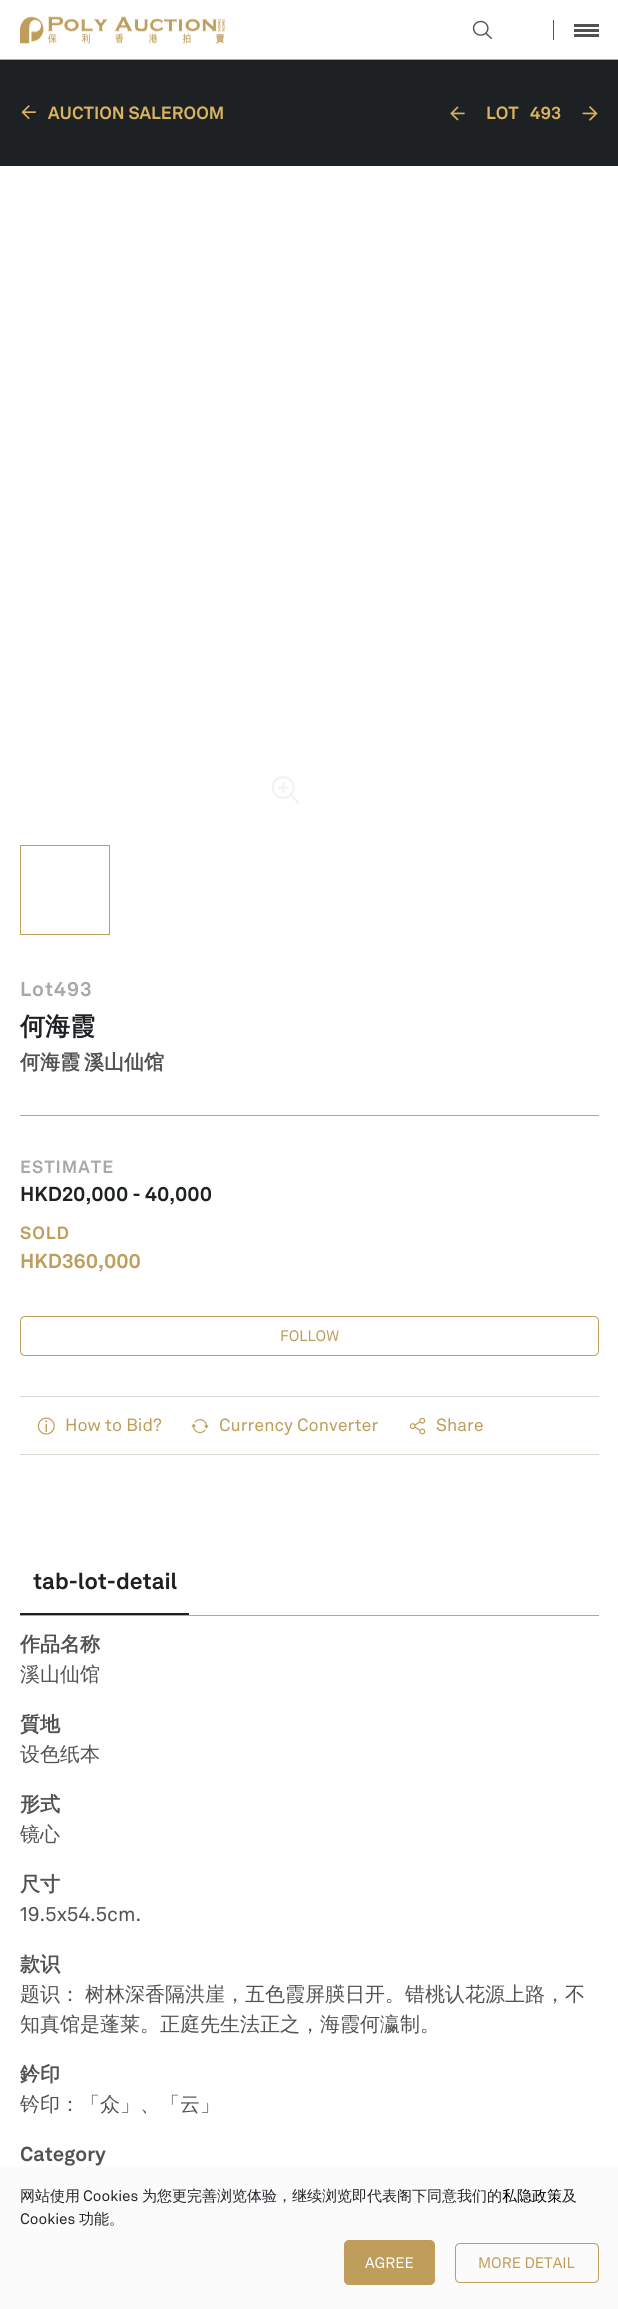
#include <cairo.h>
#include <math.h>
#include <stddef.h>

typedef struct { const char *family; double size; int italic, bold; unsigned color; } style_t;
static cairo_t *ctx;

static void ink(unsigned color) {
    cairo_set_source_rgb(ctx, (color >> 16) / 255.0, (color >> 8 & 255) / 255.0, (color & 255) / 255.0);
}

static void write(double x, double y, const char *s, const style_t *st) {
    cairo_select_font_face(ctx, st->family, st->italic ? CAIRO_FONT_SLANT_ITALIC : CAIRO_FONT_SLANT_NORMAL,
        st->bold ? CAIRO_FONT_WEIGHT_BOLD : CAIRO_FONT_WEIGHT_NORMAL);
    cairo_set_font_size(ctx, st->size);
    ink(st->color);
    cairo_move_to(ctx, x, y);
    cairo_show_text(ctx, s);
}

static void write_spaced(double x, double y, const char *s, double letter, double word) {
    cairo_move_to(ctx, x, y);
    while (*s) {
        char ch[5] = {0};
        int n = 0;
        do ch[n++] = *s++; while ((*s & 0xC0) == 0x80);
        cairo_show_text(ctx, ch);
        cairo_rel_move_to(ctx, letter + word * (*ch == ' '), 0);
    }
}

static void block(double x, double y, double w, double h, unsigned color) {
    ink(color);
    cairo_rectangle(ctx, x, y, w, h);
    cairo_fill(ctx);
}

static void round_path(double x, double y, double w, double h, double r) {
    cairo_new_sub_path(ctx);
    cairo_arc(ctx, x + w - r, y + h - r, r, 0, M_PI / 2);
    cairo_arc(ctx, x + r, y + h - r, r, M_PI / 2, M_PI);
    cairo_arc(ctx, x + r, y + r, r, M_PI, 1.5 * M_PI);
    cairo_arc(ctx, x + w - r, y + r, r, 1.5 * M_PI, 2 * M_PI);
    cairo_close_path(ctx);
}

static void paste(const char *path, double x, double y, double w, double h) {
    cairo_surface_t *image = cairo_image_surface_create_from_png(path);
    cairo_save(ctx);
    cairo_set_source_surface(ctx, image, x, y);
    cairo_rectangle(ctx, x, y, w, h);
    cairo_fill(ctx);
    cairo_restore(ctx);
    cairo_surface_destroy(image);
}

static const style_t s1 = {"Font", 17.5, 0, 1, 0xdbb35f};
static const style_t s2 = {"WenQuanYi Zen Hei", 25, 0, 1, 0x1e2123};
static const style_t s3 = {"Font", 20, 0, 1, 0x1e2123};
static const style_t s4 = {"Font", 20, 0, 1, 0xbf9d5a};
static const style_t s5 = {"Font", 15, 0, 0, 0xbf9d5a};
static const style_t s6 = {"Font", 17.5, 0, 0, 0xbf9d5a};
static const style_t s7 = {"Font", 22.5, 0, 1, 0x1e2123};
static const style_t s8 = {"WenQuanYi Zen Hei", 20, 0, 1, 0x525252};
static const style_t s9 = {"WenQuanYi Zen Hei Medium", 20, 0, 0, 0x525252};
static const style_t s10 = {"Font", 20, 0, 0, 0x525252};
static const style_t s11 = {"Font", 20, 0, 1, 0x525252};
static const style_t s12 = {"WenQuanYi Zen Hei Medium", 15, 0, 0, 0x212529};
static const style_t s13 = {"Font", 15, 0, 0, 0x212529};
static const style_t s14 = {"WenQuanYi Zen Hei Medium", 15, 0, 0, 0x000000};
static const style_t s15 = {"Font", 15, 0, 0, 0xffffff};

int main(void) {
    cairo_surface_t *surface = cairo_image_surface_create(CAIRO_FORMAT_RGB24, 618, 2309);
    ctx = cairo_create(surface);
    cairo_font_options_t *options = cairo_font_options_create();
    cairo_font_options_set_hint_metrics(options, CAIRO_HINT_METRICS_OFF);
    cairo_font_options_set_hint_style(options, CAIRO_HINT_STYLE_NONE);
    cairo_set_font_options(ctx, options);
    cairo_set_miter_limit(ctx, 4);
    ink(0xffffff);
    cairo_paint(ctx);
    block(0, 59, 618, 1, 0xa8a8a8);
    paste("pic1.png", 20, 16, 205, 28);
    paste("pic2.png", 472, 20, 21, 20);
    block(553, 20, 1, 20, 0x525252);
    block(574, 24, 25, 3, 0x525252);
    block(574, 29, 25, 3, 0x525252);
    block(574, 34, 25, 3, 0x525252);
    block(0, 60, 618, 106, 0x1e2123);
    paste("pic3.png", 21, 105, 15, 15);
    write(48, 119, "AUCTION SALEROOM", &s1);
    paste("pic4.png", 450, 106, 15, 15);
    write(486, 119, "LOT", &s1);
    write(530, 119, "493", &s1);
    paste("pic5.png", 582, 106, 16, 15);
    paste("pic6.png", 272, 776, 28, 28);
    cairo_rectangle(ctx, 20.5, 845.5, 89, 89);
    ink(0xbf9d5a);
    cairo_set_line_width(ctx, 1);
    cairo_stroke(ctx);
    cairo_set_font_size(ctx, 20);
    ink(0xa8a8a8);
    write_spaced(20, 996, "Lot493", 1, 0);
    write(20, 1035, "何海霞", &s2);
    cairo_set_font_size(ctx, 20);
    ink(0x525252);
    write_spaced(20, 1069, "何海霞 溪山仙馆", 0, -2);
    block(20, 1115, 579, 1, 0xa8a8a8);
    cairo_select_font_face(ctx, "Font", CAIRO_FONT_SLANT_NORMAL, CAIRO_FONT_WEIGHT_BOLD);
    cairo_set_font_size(ctx, 17.5);
    write_spaced(20, 1173, "ESTIMATE", 1, 0);
    write(20, 1201, "HKD20,000 - 40,000", &s3);
    cairo_set_font_size(ctx, 17.5);
    ink(0xbf9d5a);
    write_spaced(20, 1239, "SOLD", 1, 0);
    write(20, 1268, "HKD360,000", &s4);
    round_path(20.5, 1316.5, 578, 39, 4.5);
    cairo_stroke(ctx);
    write(280, 1341, "FOLLOW", &s5);
    block(20, 1396, 579, 1, 0xdcd7cf);
    block(20, 1454, 579, 1, 0xdcd7cf);
    paste("pic7.png", 37, 1417, 18, 18);
    write(65, 1431, "How to Bid?", &s6);
    paste("pic8.png", 191, 1419, 18, 15);
    write(219, 1431, "Currency Converter", &s6);
    paste("pic9.png", 409, 1417, 17, 18);
    write(436, 1431, "Share", &s6);
    block(20, 1615, 579, 1, 0xa8a8a8);
    write(33, 1589, "tab-lot-detail", &s7);
    block(20, 1613, 169, 2, 0x1e2123);
    write(20, 1651, "作品名称", &s8);
    write(20, 1681, "溪山仙馆", &s9);
    write(20, 1731, "質地", &s8);
    write(20, 1761, "设色纸本", &s9);
    write(20, 1811, "形式", &s8);
    write(20, 1841, "镜心", &s9);
    write(20, 1891, "尺寸", &s8);
    write(20, 1921, "19.5x54.5cm.", &s10);
    write(20, 1971, "款识", &s8);
    cairo_select_font_face(ctx, "WenQuanYi Zen Hei Medium", CAIRO_FONT_SLANT_NORMAL, CAIRO_FONT_WEIGHT_NORMAL);
    write_spaced(20, 2001, "题识： 树林深香隔洪崖，五色霞屏朠日开。错桃认花源上路，不", 0, -1);
    write(20, 2031, "知真馆是蓬莱。正庭先生法正之，海霞何瀛制。", &s9);
    write(20, 2081, "鈐印", &s8);
    write(20, 2111, "钤印：「众」、「云」", &s9);
    write(20, 2161, "Category", &s11);
    block(0, 2166, 618, 143, 0xfbfbfb);
    write(20, 2201, "网站使用", &s12);
    write(83, 2201, "Cookies", &s13);
    write(142, 2201, "为您更完善浏览体验，继续浏览即代表阁下同意我们的", &s12);
    write(502, 2201, "私隐政策", &s14);
    write(562, 2201, "及", &s12);
    write(20, 2224, "Cookies", &s13);
    write(79, 2224, "功能。", &s12);
    ink(0xbf9d5a);
    round_path(344.5, 2240.5, 90, 44, 4.5);
    cairo_fill_preserve(ctx);
    cairo_stroke(ctx);
    write(365, 2268, "AGREE", &s15);
    round_path(455.5, 2243.5, 143, 39, 4.5);
    ink(0xbf9d5a);
    cairo_stroke(ctx);
    write(478, 2268, "MORE DETAIL", &s5);
    cairo_surface_write_to_png(surface, "screenshot.png");
    cairo_font_options_destroy(options);
    cairo_destroy(ctx);
    cairo_surface_destroy(surface);
    return 0;
}
